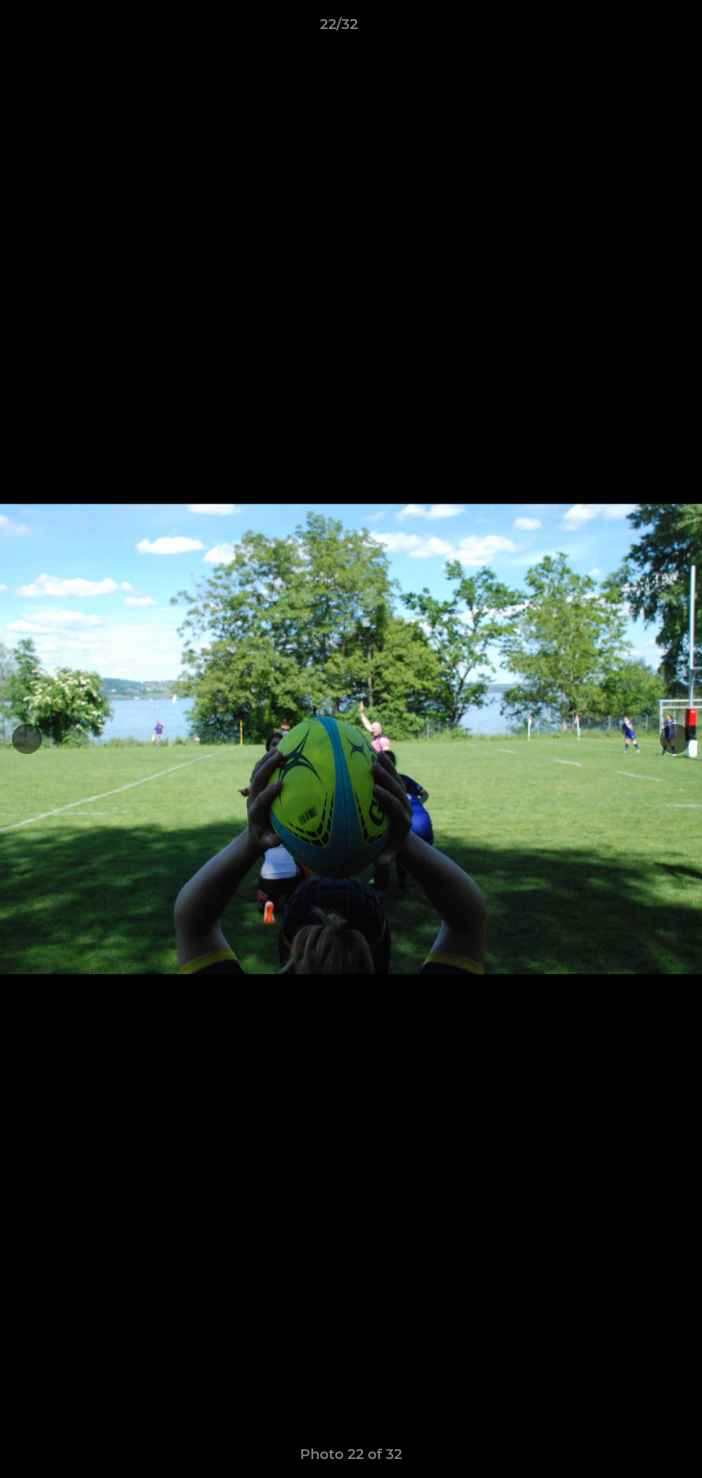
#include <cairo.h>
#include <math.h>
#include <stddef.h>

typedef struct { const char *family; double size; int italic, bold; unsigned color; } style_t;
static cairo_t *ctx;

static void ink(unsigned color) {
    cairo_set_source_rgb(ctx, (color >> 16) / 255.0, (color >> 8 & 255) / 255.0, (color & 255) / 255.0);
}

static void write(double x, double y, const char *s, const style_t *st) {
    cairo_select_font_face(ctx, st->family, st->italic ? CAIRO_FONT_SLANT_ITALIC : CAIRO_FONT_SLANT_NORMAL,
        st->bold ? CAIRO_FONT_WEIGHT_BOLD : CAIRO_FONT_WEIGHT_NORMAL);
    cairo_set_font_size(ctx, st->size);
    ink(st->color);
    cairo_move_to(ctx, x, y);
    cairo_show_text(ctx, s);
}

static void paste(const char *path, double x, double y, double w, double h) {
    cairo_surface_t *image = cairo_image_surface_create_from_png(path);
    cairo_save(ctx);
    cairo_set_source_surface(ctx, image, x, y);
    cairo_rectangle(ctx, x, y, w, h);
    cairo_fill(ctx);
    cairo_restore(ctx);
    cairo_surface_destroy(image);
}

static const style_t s1 = {"Montserrat SemiBold", 14, 0, 0, 0x808080};

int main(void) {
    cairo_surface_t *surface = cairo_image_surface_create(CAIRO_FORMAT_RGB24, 702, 1478);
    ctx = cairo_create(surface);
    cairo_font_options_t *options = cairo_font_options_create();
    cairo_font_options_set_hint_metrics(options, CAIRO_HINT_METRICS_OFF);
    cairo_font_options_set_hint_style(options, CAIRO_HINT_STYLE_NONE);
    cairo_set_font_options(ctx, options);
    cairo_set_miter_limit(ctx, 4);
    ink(0x000000);
    cairo_paint(ctx);
    write(320, 29, "22/32", &s1);
    paste("pic1.png", 0, 503, 702, 472);
    cairo_set_source_rgba(ctx, 0, 0, 0, 0.5);
    cairo_arc(ctx, 27, 739, 15, 0, 2 * M_PI);
    cairo_fill(ctx);
    cairo_arc(ctx, 675, 739, 15, 0, 2 * M_PI);
    cairo_fill(ctx);
    write(300, 1459, "Photo 22 of 32", &s1);
    cairo_surface_write_to_png(surface, "screenshot.png");
    cairo_font_options_destroy(options);
    cairo_destroy(ctx);
    cairo_surface_destroy(surface);
    return 0;
}
